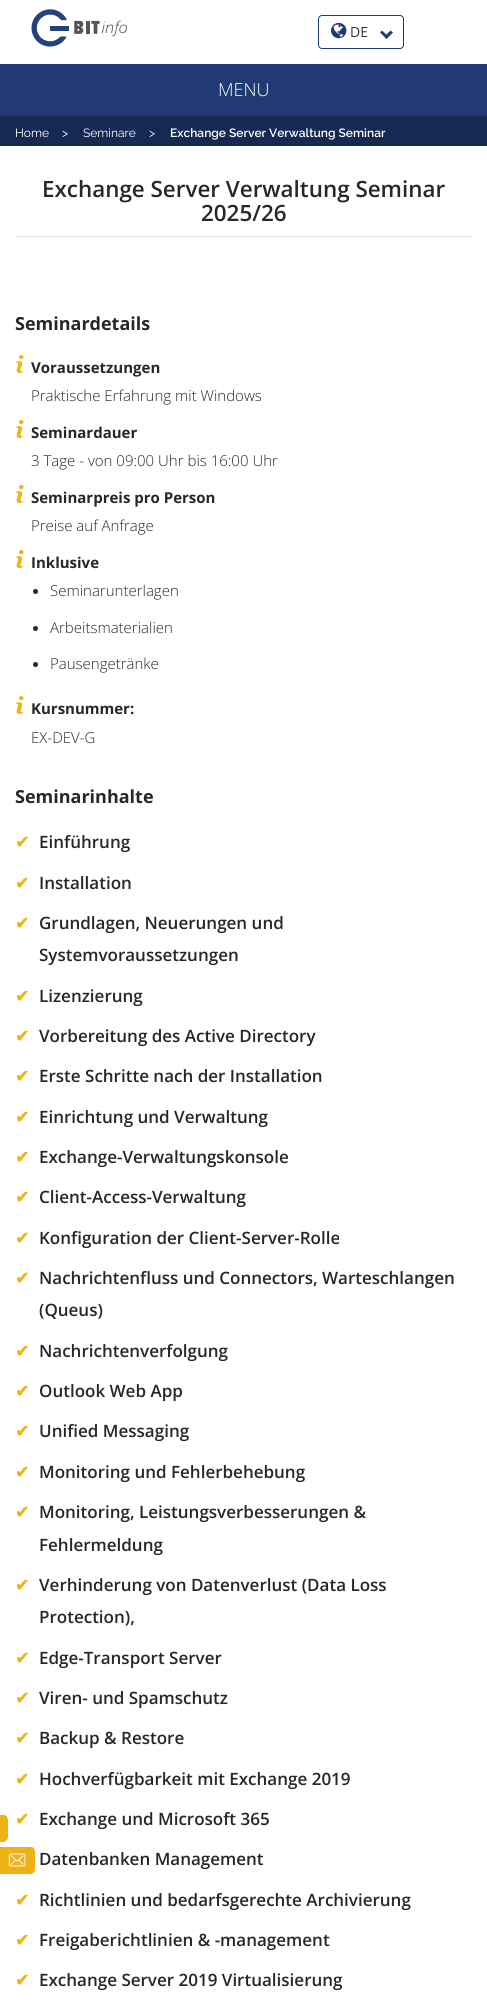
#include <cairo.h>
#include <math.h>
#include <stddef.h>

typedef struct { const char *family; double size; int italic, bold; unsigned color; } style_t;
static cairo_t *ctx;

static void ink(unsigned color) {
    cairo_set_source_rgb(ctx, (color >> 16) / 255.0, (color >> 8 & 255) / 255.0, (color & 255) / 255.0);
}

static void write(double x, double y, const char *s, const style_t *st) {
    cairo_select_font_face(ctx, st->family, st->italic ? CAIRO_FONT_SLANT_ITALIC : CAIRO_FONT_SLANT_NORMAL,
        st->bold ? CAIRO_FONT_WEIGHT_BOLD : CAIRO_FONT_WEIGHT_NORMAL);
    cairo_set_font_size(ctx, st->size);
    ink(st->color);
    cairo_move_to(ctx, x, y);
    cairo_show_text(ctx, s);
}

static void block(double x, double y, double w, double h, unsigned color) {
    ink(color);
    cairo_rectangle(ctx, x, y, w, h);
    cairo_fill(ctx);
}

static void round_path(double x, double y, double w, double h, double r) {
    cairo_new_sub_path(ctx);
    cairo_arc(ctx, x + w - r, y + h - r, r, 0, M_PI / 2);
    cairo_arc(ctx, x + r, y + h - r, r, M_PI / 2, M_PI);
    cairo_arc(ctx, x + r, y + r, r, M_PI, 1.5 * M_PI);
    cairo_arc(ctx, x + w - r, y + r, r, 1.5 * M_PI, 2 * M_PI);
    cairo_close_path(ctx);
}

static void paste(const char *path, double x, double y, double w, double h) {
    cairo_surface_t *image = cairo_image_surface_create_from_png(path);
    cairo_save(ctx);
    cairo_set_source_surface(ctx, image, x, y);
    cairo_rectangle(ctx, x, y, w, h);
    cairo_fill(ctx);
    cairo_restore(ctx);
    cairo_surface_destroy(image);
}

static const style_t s1 = {"Open Sans", 14, 0, 0, 0x333333};
static const style_t s2 = {"Open Sans Light", 18, 0, 0, 0xffffff};
static const style_t s3 = {"Raleway", 12, 0, 0, 0xffffff};
static const style_t s4 = {"Raleway SemiBold", 12, 0, 0, 0xffffff};
static const style_t s5 = {"Open Sans SemiBold", 22.4, 0, 0, 0x272727};
static const style_t s6 = {"Open Sans", 18, 0, 1, 0x272727};
static const style_t s7 = {"Open Sans", 15, 0, 1, 0x272727};
static const style_t s8 = {"Open Sans Light", 15, 0, 0, 0x272727};
static const style_t s9 = {"DejaVu Sans", 17, 0, 1, 0xeeb315};
static const style_t s10 = {"Open Sans SemiBold", 17, 0, 0, 0x272727};

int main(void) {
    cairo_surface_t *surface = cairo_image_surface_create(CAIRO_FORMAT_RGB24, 487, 2006);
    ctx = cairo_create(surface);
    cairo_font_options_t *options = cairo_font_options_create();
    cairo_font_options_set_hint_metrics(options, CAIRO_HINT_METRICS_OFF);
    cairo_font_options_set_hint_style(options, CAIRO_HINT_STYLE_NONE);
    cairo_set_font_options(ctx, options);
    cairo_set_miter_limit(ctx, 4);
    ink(0xffffff);
    cairo_paint(ctx);
    paste("pic1.png", 31, 9, 96, 38);
    round_path(318.5, 15.5, 85, 33, 3.5);
    ink(0x213a73);
    cairo_set_line_width(ctx, 1);
    cairo_stroke(ctx);
    paste("pic2.png", 331, 22, 16, 17);
    write(350, 37, "DE", &s1);
    ink(0x213a73);
    cairo_new_path(ctx);
    cairo_move_to(ctx, 390.5, 30.5);
    cairo_line_to(ctx, 393, 32.5);
    cairo_line_to(ctx, 386.5, 39);
    cairo_line_to(ctx, 384.5, 36.5);
    cairo_close_path(ctx);
    cairo_fill(ctx);
    cairo_new_path(ctx);
    cairo_move_to(ctx, 382, 30.5);
    cairo_line_to(ctx, 388.5, 36.5);
    cairo_line_to(ctx, 386.5, 39);
    cairo_line_to(ctx, 380, 32.5);
    cairo_close_path(ctx);
    cairo_fill(ctx);
    block(0, 64, 487, 52, 0x213a73);
    write(218, 96, "MENU", &s2);
    block(0, 116, 487, 30, 0x152953);
    write(15, 137, "Home", &s3);
    write(62, 137, ">", &s3);
    write(83, 137, "Seminare", &s3);
    write(149, 137, ">", &s3);
    write(170, 137, "Exchange Server Verwaltung Seminar", &s4);
    block(15, 236, 457, 1, 0xe4e4e4);
    write(42, 197, "Exchange Server Verwaltung Seminar", &s5);
    write(201, 221, "2025/26", &s5);
    write(15, 330, "Seminardetails", &s6);
    paste("pic3.png", 15, 355, 9, 18);
    write(31, 373, "Voraussetzungen", &s7);
    write(31, 401, "Praktische Erfahrung mit Windows", &s8);
    paste("pic3.png", 15, 420, 9, 18);
    write(31, 438, "Seminardauer", &s7);
    write(31, 466, "3 Tage - von 09:00 Uhr bis 16:00 Uhr", &s8);
    paste("pic3.png", 15, 485, 9, 18);
    write(31, 503, "Seminarpreis pro Person", &s7);
    write(31, 531, "Preise auf Anfrage", &s8);
    paste("pic3.png", 15, 550, 9, 18);
    write(31, 568, "Inklusive", &s7);
    cairo_new_path(ctx);
    cairo_arc(ctx, 35.5, 591.5, 2.5, 0, 2 * M_PI);
    cairo_fill(ctx);
    write(50, 596, "Seminarunterlagen", &s8);
    cairo_new_path(ctx);
    cairo_arc(ctx, 35.5, 628.5, 2.5, 0, 2 * M_PI);
    cairo_fill(ctx);
    write(50, 633, "Arbeitsmaterialien", &s8);
    cairo_new_path(ctx);
    cairo_arc(ctx, 35.5, 664.5, 2.5, 0, 2 * M_PI);
    cairo_fill(ctx);
    write(50, 669, "Pausengetränke", &s8);
    paste("pic3.png", 15, 696, 9, 18);
    write(31, 714, "Kursnummer:", &s7);
    write(31, 743, "EX-DEV-G", &s8);
    write(15, 803, "Seminarinhalte", &s6);
    write(15, 848, "✔", &s9);
    write(39, 848, "Einführung", &s10);
    write(15, 889, "✔", &s9);
    write(39, 889, "Installation", &s10);
    write(15, 929, "✔", &s9);
    write(39, 929, "Grundlagen, Neuerungen und", &s10);
    write(39, 961, "Systemvoraussetzungen", &s10);
    write(15, 1002, "✔", &s9);
    write(39, 1002, "Lizenzierung", &s10);
    write(15, 1042, "✔", &s9);
    write(39, 1042, "Vorbereitung des Active Directory", &s10);
    write(15, 1082, "✔", &s9);
    write(39, 1082, "Erste Schritte nach der Installation", &s10);
    write(15, 1123, "✔", &s9);
    write(39, 1123, "Einrichtung und Verwaltung", &s10);
    write(15, 1163, "✔", &s9);
    write(39, 1163, "Exchange-Verwaltungskonsole", &s10);
    write(15, 1203, "✔", &s9);
    write(39, 1203, "Client-Access-Verwaltung", &s10);
    write(15, 1244, "✔", &s9);
    write(39, 1244, "Konfiguration der Client-Server-Rolle", &s10);
    write(15, 1284, "✔", &s9);
    write(39, 1284, "Nachrichtenfluss und Connectors, Warteschlangen", &s10);
    write(39, 1316, "(Queus)", &s10);
    write(15, 1357, "✔", &s9);
    write(39, 1357, "Nachrichtenverfolgung", &s10);
    write(15, 1397, "✔", &s9);
    write(39, 1397, "Outlook Web App", &s10);
    write(15, 1437, "✔", &s9);
    write(39, 1437, "Unified Messaging", &s10);
    write(15, 1478, "✔", &s9);
    write(39, 1478, "Monitoring und Fehlerbehebung", &s10);
    write(15, 1518, "✔", &s9);
    write(39, 1518, "Monitoring, Leistungsverbesserungen &", &s10);
    write(39, 1551, "Fehlermeldung", &s10);
    write(15, 1591, "✔", &s9);
    write(39, 1591, "Verhinderung von Datenverlust (Data Loss", &s10);
    write(39, 1623, "Protection),", &s10);
    write(15, 1664, "✔", &s9);
    write(39, 1664, "Edge-Transport Server", &s10);
    write(15, 1704, "✔", &s9);
    write(39, 1704, "Viren- und Spamschutz", &s10);
    write(15, 1744, "✔", &s9);
    write(39, 1744, "Backup & Restore", &s10);
    write(15, 1785, "✔", &s9);
    write(39, 1785, "Hochverfügbarkeit mit Exchange 2019", &s10);
    write(15, 1825, "✔", &s9);
    write(39, 1825, "Exchange und Microsoft 365", &s10);
    write(39, 1865, "Datenbanken Management", &s10);
    write(15, 1906, "✔", &s9);
    write(39, 1906, "Richtlinien und bedarfsgerechte Archivierung", &s10);
    write(15, 1946, "✔", &s9);
    write(39, 1946, "Freigaberichtlinien & -management", &s10);
    write(15, 1986, "✔", &s9);
    write(39, 1986, "Exchange Server 2019 Virtualisierung", &s10);
    paste("pic4.png", 0, 1815, 8, 27);
    paste("pic5.png", 0, 1847, 35, 27);
    cairo_surface_write_to_png(surface, "screenshot.png");
    cairo_font_options_destroy(options);
    cairo_destroy(ctx);
    cairo_surface_destroy(surface);
    return 0;
}
